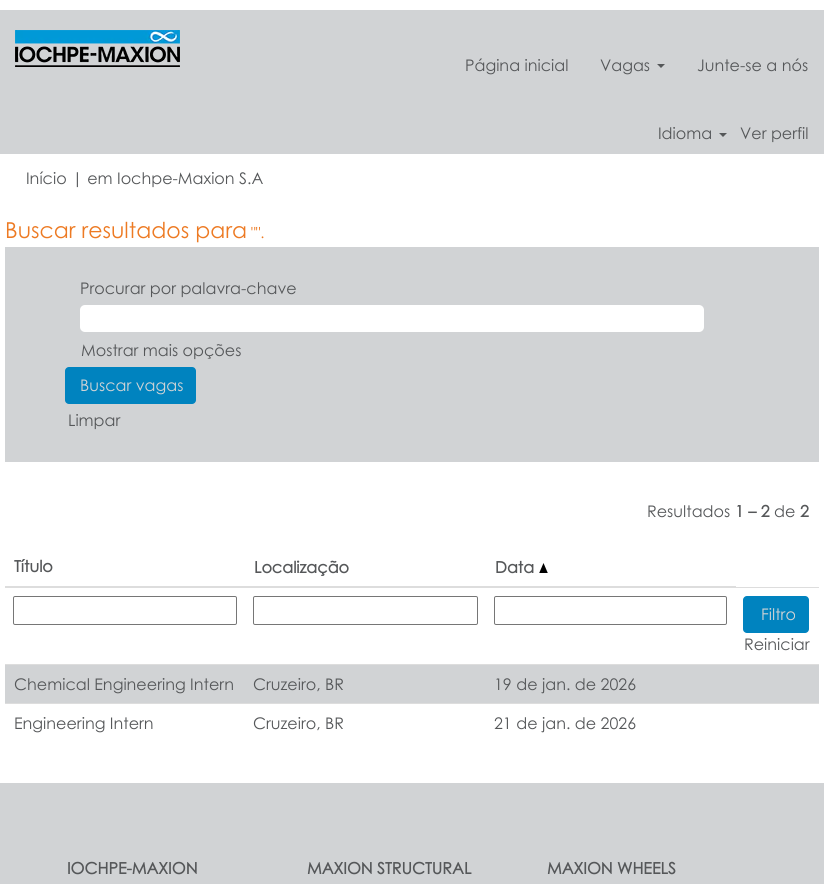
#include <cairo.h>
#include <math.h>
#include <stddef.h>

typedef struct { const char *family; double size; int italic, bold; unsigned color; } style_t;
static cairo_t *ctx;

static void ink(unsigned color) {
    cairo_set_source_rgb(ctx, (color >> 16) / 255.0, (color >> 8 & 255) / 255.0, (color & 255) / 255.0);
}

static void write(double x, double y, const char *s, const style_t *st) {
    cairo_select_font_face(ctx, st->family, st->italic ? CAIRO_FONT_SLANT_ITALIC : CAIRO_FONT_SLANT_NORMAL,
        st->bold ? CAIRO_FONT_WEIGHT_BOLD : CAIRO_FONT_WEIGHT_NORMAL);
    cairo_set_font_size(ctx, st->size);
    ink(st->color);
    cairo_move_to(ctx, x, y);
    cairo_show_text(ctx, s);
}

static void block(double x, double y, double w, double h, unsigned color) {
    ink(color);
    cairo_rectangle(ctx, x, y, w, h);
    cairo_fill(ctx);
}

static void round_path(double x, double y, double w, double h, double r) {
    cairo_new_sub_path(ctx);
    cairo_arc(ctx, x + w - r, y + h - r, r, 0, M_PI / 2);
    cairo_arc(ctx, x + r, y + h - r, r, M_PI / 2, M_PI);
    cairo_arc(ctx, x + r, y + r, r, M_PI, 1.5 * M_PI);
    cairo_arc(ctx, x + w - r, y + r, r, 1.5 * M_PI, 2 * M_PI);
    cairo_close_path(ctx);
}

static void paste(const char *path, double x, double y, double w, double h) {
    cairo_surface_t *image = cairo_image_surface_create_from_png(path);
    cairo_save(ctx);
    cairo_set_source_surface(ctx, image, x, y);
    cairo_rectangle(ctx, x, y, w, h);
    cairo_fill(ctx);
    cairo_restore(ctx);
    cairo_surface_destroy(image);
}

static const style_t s1 = {"Century Gothic", 16, 0, 0, 0x555759};
static const style_t s2 = {"Century Gothic", 22, 0, 0, 0xed7a23};
static const style_t s3 = {"Century Gothic", 15, 0, 0, 0xed7a23};
static const style_t s4 = {"Century Gothic", 16, 0, 0, 0xd1d3d5};
static const style_t s5 = {"Century Gothic", 16, 0, 1, 0x555759};

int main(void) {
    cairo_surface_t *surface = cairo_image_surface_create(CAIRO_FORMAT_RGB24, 824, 884);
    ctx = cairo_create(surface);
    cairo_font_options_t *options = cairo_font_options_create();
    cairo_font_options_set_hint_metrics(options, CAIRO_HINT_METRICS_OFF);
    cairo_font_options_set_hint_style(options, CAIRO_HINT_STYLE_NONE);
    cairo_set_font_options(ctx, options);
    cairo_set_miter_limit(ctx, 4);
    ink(0xffffff);
    cairo_paint(ctx);
    block(0, 10, 824, 144, 0xd1d3d5);
    paste("pic1.png", 15, 30, 165, 37);
    write(465, 71, "Página inicial", &s1);
    write(600, 71, "Vagas", &s1);
    cairo_new_path(ctx);
    cairo_move_to(ctx, 657, 64);
    cairo_line_to(ctx, 665, 64);
    cairo_line_to(ctx, 661, 68);
    cairo_close_path(ctx);
    cairo_fill(ctx);
    write(697, 71, "Junte-se a nós", &s1);
    write(658, 139, "Idioma", &s1);
    cairo_new_path(ctx);
    cairo_move_to(ctx, 719, 133);
    cairo_line_to(ctx, 727, 133);
    cairo_line_to(ctx, 723, 137);
    cairo_close_path(ctx);
    cairo_fill(ctx);
    write(740, 139, "Ver perfil", &s1);
    write(26, 184, "Início", &s1);
    write(72, 184, "| em Iochpe-Maxion S.A", &s1);
    write(5, 238, "Buscar resultados para", &s2);
    write(251, 238, "\"\".", &s3);
    block(5, 247, 814, 215, 0xd1d3d5);
    write(80, 294, "Procurar por palavra-chave", &s1);
    ink(0xffffff);
    round_path(80, 305, 624, 27, 5);
    cairo_fill(ctx);
    write(81, 356, "Mostrar mais opções", &s1);
    ink(0x0083bf);
    round_path(65, 367, 131, 37, 4);
    cairo_fill(ctx);
    write(80, 391, "Buscar vagas", &s4);
    write(68, 426, "Limpar", &s1);
    write(647, 517, "Resultados", &s1);
    write(735, 517, "1 – 2", &s5);
    write(774, 517, "de", &s1);
    write(800, 517, "2", &s5);
    write(14, 572, "Título", &s5);
    write(254, 573, "Localização", &s5);
    block(735, 587, 84, 1, 0xdddddd);
    block(5, 586, 731, 2, 0xdddddd);
    write(495, 573, "Data", &s5);
    paste("pic2.png", 539, 563, 9, 10);
    round_path(13.5, 596.5, 223, 28, 1.5);
    ink(0x767676);
    cairo_set_line_width(ctx, 1);
    cairo_stroke(ctx);
    round_path(253.5, 596.5, 224, 28, 1.5);
    cairo_stroke(ctx);
    round_path(494.5, 596.5, 232, 28, 1.5);
    cairo_stroke(ctx);
    ink(0x0083bf);
    round_path(743, 596, 66, 37, 4);
    cairo_fill(ctx);
    write(761, 620, "Filtro", &s4);
    write(744, 650, "Reiniciar", &s1);
    block(5, 665, 814, 38, 0xd1d3d5);
    block(5, 664, 814, 1, 0xdddddd);
    write(14, 690, "Chemical Engineering Intern", &s1);
    write(253, 690, "Cruzeiro, BR", &s1);
    write(494, 690, "19 de jan. de 2026", &s1);
    block(5, 703, 814, 1, 0xdddddd);
    write(14, 729, "Engineering Intern", &s1);
    write(253, 729, "Cruzeiro, BR", &s1);
    write(494, 729, "21 de jan. de 2026", &s1);
    block(0, 783, 824, 101, 0xd1d3d5);
    write(67, 874, "IOCHPE-MAXION", &s5);
    write(307, 874, "MAXION STRUCTURAL", &s5);
    write(547, 874, "MAXION WHEELS", &s5);
    cairo_surface_write_to_png(surface, "screenshot.png");
    cairo_font_options_destroy(options);
    cairo_destroy(ctx);
    cairo_surface_destroy(surface);
    return 0;
}
